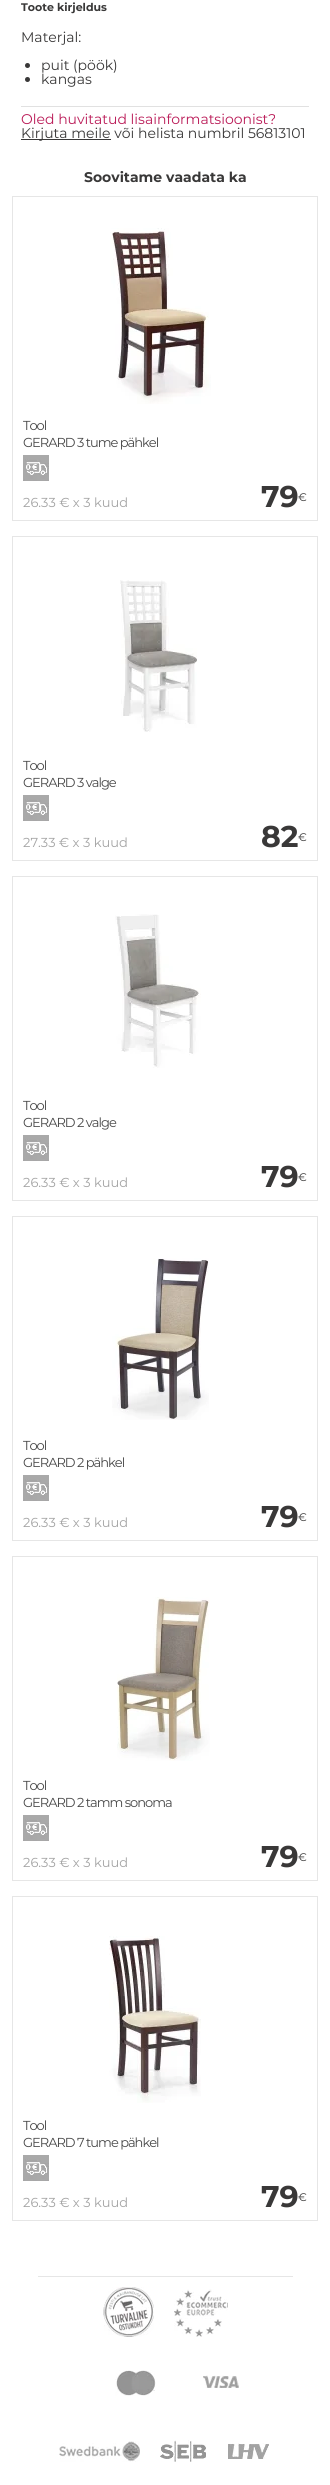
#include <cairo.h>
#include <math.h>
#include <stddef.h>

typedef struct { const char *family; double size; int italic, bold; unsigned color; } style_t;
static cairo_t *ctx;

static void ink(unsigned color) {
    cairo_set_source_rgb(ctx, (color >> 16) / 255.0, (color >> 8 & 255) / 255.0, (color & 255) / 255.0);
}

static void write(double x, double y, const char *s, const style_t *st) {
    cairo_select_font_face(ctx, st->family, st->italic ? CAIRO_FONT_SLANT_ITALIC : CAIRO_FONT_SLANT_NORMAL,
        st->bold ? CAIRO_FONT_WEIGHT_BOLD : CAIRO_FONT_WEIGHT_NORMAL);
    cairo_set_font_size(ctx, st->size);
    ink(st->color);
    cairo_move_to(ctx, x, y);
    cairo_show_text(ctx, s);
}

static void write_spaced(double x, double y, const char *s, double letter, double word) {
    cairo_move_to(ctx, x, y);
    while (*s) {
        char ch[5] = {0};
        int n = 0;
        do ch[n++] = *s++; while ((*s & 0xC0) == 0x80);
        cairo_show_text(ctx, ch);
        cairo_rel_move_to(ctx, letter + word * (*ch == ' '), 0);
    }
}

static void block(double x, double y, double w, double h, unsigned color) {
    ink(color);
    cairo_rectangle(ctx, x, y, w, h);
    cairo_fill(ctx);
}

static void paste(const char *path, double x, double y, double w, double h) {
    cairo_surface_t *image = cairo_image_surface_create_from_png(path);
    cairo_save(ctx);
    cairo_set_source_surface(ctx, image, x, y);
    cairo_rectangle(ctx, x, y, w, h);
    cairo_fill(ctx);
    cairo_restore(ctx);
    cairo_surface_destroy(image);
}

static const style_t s1 = {"Montserrat", 11, 0, 1, 0x393838};
static const style_t s2 = {"Montserrat", 14, 0, 0, 0x393838};
static const style_t s3 = {"Montserrat", 14, 0, 0, 0xba1a57};
static const style_t s4 = {"Montserrat", 14, 0, 1, 0x393838};
static const style_t s5 = {"Montserrat", 13, 0, 0, 0xa3a3a3};
static const style_t s6 = {"Montserrat", 30, 0, 1, 0x393838};
static const style_t s7 = {"Montserrat", 11, 0, 0, 0x393838};

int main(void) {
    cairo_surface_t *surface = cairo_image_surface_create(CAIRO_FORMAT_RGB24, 330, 2485);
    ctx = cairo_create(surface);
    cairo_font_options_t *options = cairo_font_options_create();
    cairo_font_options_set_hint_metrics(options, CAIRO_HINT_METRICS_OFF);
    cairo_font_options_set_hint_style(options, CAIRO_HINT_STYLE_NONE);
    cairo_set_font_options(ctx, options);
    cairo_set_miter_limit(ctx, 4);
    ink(0xffffff);
    cairo_paint(ctx);
    write(21, 11, "Toote kirjeldus", &s1);
    write(21, 42, "Materjal:", &s2);
    cairo_new_path(ctx);
    cairo_arc(ctx, 27.5, 65.5, 2.5, 0, 2 * M_PI);
    cairo_fill(ctx);
    write(41, 70, "puit (pöök)", &s2);
    cairo_new_path(ctx);
    cairo_arc(ctx, 27.5, 79.5, 2.5, 0, 2 * M_PI);
    cairo_fill(ctx);
    write(41, 84, "kangas", &s2);
    block(21, 106, 288, 1, 0xe1e1e1);
    write(21, 124, "Oled huvitatud lisainformatsioonist?", &s3);
    block(21, 139, 90, 1, 0x393838);
    write(21, 138, "Kirjuta meile või helista numbril 56813101", &s2);
    write(84, 182, "Soovitame vaadata ka", &s4);
    cairo_rectangle(ctx, 12.5, 196.5, 305, 324);
    ink(0xe6e6e6);
    cairo_set_line_width(ctx, 1);
    cairo_stroke(ctx);
    paste("pic1.png", 110, 228, 101, 176);
    cairo_select_font_face(ctx, "Montserrat", CAIRO_FONT_SLANT_NORMAL, CAIRO_FONT_WEIGHT_NORMAL);
    cairo_set_font_size(ctx, 13);
    ink(0x474747);
    write_spaced(23, 430, "Tool", -1, 0);
    write_spaced(23, 447, "GERARD 3 tume pähkel", -1, 0);
    paste("pic2.png", 23, 455, 26, 26);
    write(23, 507, "26.33 € x 3 kuud", &s5);
    write(261, 507, "79", &s6);
    write(298, 501, "€", &s7);
    cairo_rectangle(ctx, 12.5, 536.5, 305, 324);
    ink(0xe6e6e6);
    cairo_stroke(ctx);
    paste("pic3.png", 120, 580, 77, 152);
    cairo_set_font_size(ctx, 13);
    ink(0x474747);
    write_spaced(23, 770, "Tool", -1, 0);
    write_spaced(23, 787, "GERARD 3 valge", -1, 0);
    paste("pic2.png", 23, 795, 26, 26);
    write(23, 847, "27.33 € x 3 kuud", &s5);
    write(261, 847, "82", &s6);
    write(298, 841, "€", &s7);
    cairo_rectangle(ctx, 12.5, 876.5, 305, 324);
    ink(0xe6e6e6);
    cairo_stroke(ctx);
    paste("pic4.png", 115, 914, 86, 154);
    cairo_set_font_size(ctx, 13);
    ink(0x474747);
    write_spaced(23, 1110, "Tool", -1, 0);
    write_spaced(23, 1127, "GERARD 2 valge", -1, 0);
    paste("pic2.png", 23, 1135, 26, 26);
    write(23, 1187, "26.33 € x 3 kuud", &s5);
    write(261, 1187, "79", &s6);
    write(298, 1181, "€", &s7);
    cairo_rectangle(ctx, 12.5, 1216.5, 305, 324);
    ink(0xe6e6e6);
    cairo_stroke(ctx);
    paste("pic5.png", 112, 1258, 97, 162);
    cairo_set_font_size(ctx, 13);
    ink(0x474747);
    write_spaced(23, 1450, "Tool", -1, 0);
    write_spaced(23, 1467, "GERARD 2 pähkel", -1, 0);
    paste("pic2.png", 23, 1475, 26, 26);
    write(23, 1527, "26.33 € x 3 kuud", &s5);
    write(261, 1527, "79", &s6);
    write(298, 1521, "€", &s7);
    cairo_rectangle(ctx, 12.5, 1556.5, 305, 324);
    ink(0xe6e6e6);
    cairo_stroke(ctx);
    paste("pic6.png", 117, 1597, 93, 164);
    cairo_set_font_size(ctx, 13);
    ink(0x474747);
    write_spaced(23, 1790, "Tool", -1, 0);
    write_spaced(23, 1807, "GERARD 2 tamm sonoma", -1, 0);
    paste("pic2.png", 23, 1815, 26, 26);
    write(23, 1867, "26.33 € x 3 kuud", &s5);
    write(261, 1867, "79", &s6);
    write(298, 1861, "€", &s7);
    cairo_rectangle(ctx, 12.5, 1896.5, 305, 324);
    ink(0xe6e6e6);
    cairo_stroke(ctx);
    paste("pic7.png", 109, 1936, 92, 167);
    cairo_set_font_size(ctx, 13);
    ink(0x474747);
    write_spaced(23, 2130, "Tool", -1, 0);
    write_spaced(23, 2147, "GERARD 7 tume pähkel", -1, 0);
    paste("pic2.png", 23, 2155, 26, 26);
    write(23, 2207, "26.33 € x 3 kuud", &s5);
    write(261, 2207, "79", &s6);
    write(298, 2201, "€", &s7);
    block(38, 2276, 255, 1, 0xe6e6e6);
    paste("pic8.png", 103, 2287, 51, 50);
    paste("pic9.png", 174, 2289, 54, 48);
    paste("pic10.png", 115, 2370, 41, 26);
    paste("pic11.png", 203, 2375, 36, 13);
    paste("pic12.png", 59, 2441, 81, 21);
    paste("pic13.png", 160, 2440, 46, 22);
    paste("pic14.png", 228, 2443, 41, 16);
    cairo_surface_write_to_png(surface, "screenshot.png");
    cairo_font_options_destroy(options);
    cairo_destroy(ctx);
    cairo_surface_destroy(surface);
    return 0;
}
